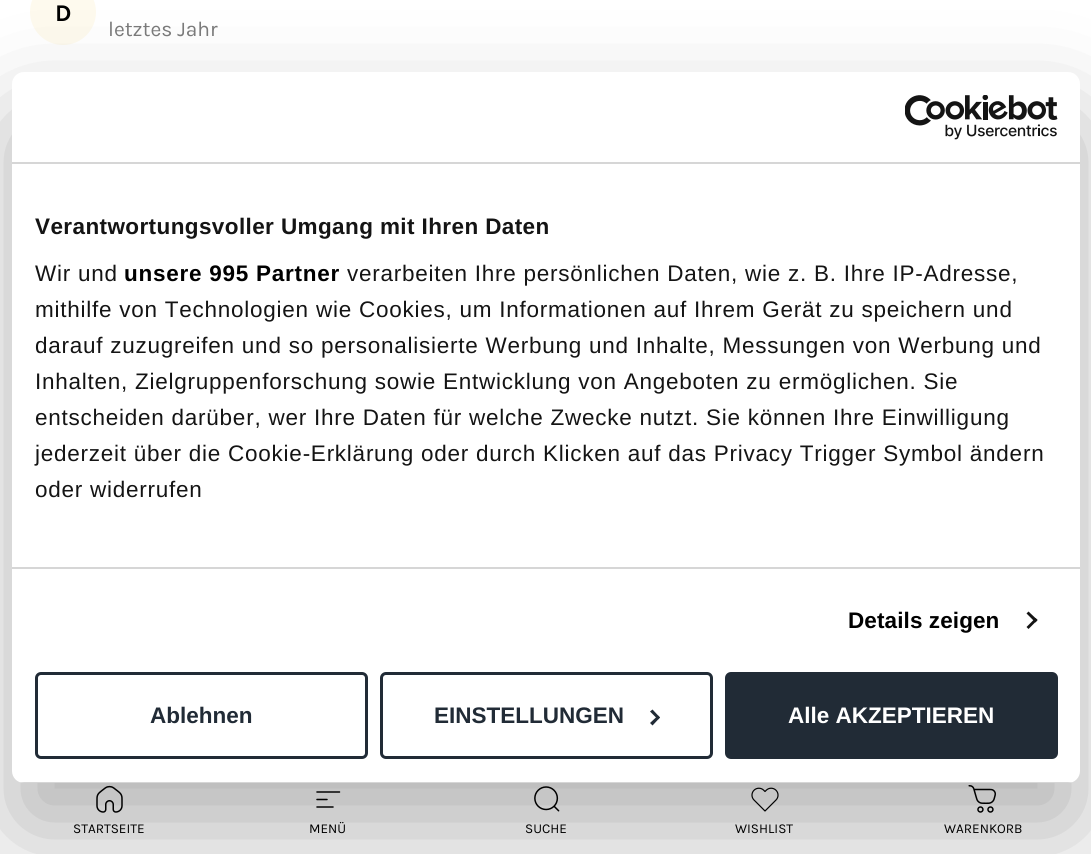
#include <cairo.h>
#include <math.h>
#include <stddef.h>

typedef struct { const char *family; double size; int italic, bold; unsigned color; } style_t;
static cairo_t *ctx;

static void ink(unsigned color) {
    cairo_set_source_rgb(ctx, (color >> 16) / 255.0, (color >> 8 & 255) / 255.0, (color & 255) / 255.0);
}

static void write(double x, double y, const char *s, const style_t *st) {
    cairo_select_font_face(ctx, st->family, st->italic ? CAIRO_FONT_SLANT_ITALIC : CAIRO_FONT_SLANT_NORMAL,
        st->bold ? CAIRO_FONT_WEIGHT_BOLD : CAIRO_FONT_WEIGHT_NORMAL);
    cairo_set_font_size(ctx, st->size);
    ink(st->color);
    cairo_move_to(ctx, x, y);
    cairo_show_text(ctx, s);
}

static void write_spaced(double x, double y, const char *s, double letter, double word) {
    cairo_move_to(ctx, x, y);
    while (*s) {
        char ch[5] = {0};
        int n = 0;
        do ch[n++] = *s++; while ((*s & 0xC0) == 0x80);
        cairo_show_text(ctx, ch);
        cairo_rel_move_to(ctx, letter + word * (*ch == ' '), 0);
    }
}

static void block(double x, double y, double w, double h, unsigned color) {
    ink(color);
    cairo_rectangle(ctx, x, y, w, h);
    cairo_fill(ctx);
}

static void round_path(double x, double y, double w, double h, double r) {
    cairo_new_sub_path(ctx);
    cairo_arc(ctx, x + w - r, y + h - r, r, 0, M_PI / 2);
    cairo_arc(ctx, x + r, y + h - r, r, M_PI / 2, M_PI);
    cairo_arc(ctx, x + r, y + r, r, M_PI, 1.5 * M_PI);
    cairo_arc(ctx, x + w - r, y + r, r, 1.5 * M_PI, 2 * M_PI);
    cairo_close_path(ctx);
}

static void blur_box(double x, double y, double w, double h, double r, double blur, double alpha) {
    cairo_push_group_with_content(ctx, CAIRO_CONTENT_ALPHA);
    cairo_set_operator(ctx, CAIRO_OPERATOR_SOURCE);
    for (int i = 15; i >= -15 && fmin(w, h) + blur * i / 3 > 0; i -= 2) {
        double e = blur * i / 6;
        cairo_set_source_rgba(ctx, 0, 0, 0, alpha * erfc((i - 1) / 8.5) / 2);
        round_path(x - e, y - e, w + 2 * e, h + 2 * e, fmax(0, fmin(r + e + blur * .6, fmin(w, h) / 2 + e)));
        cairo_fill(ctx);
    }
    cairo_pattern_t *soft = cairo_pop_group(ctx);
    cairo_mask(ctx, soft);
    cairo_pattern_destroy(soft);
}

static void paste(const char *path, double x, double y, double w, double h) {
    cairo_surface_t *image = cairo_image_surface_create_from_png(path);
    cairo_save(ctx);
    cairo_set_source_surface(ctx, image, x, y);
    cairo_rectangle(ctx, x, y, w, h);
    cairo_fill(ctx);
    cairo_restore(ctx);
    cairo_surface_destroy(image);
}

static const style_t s1 = {"Karla", 24, 0, 1, 0x000000};
static const style_t s2 = {"Karla", 21, 0, 0, 0x7b7b7b};
static const style_t s3 = {"Liberation Sans", 22.5, 0, 1, 0x212b36};
static const style_t s4 = {"Liberation Sans", 22.5, 0, 1, 0xffffff};
static const style_t s5 = {"Karla", 13.5, 0, 0, 0x000000};

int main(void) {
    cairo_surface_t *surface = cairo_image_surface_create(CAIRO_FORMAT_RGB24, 1091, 854);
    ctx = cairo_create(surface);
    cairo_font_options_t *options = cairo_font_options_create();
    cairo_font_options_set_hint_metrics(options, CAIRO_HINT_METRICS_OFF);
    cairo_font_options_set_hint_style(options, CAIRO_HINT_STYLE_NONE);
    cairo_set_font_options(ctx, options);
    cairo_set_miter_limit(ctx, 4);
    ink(0xffffff);
    cairo_paint(ctx);
    ink(0xfefaee);
    cairo_arc(ctx, 63, 12, 33, 0, 2 * M_PI);
    cairo_fill(ctx);
    write(55, 21, "D", &s1);
    write(108, 36, "letztes Jahr", &s2);
    paste("pic2.png", 96, 785, 27, 28);
    cairo_new_path(ctx);
    cairo_move_to(ctx, 317, 792);
    cairo_line_to(ctx, 339.5, 792);
    cairo_move_to(ctx, 317, 799.5);
    cairo_line_to(ctx, 327, 799.5);
    cairo_move_to(ctx, 317, 807);
    cairo_line_to(ctx, 333, 807);
    ink(0x000000);
    cairo_set_line_width(ctx, 1.5);
    cairo_set_line_cap(ctx, CAIRO_LINE_CAP_ROUND);
    cairo_set_line_join(ctx, CAIRO_LINE_JOIN_ROUND);
    cairo_stroke(ctx);
    paste("pic3.png", 534, 786, 26, 26);
    paste("pic4.png", 751, 787, 28, 25);
    paste("pic5.png", 968, 785, 28, 28);
    ink(0x000000);
    blur_box(12, 120, 1068, 711, 12, 51, 0.3);
    ink(0xffffff);
    round_path(12, 72, 1068, 711, 12);
    cairo_fill(ctx);
    block(12, 162, 1068, 2, 0xd6d6d6);
    paste("pic1.png", 905, 95, 153, 45);
    block(12, 567, 1068, 2, 0xd6d6d6);
    cairo_select_font_face(ctx, "Liberation Sans", CAIRO_FONT_SLANT_NORMAL, CAIRO_FONT_WEIGHT_BOLD);
    cairo_set_font_size(ctx, 22.5);
    ink(0x141414);
    write_spaced(35, 234, "Verantwortungsvoller Umgang mit Ihren Daten", 0.4, 0);
    cairo_select_font_face(ctx, "Liberation Sans", CAIRO_FONT_SLANT_NORMAL, CAIRO_FONT_WEIGHT_NORMAL);
    write_spaced(35, 281, "Wir und", 0.75, 0);
    cairo_select_font_face(ctx, "Liberation Sans", CAIRO_FONT_SLANT_NORMAL, CAIRO_FONT_WEIGHT_BOLD);
    ink(0x000000);
    write_spaced(124, 281, "unsere 995 Partner", 0.75, 0);
    cairo_select_font_face(ctx, "Liberation Sans", CAIRO_FONT_SLANT_NORMAL, CAIRO_FONT_WEIGHT_NORMAL);
    ink(0x141414);
    write_spaced(347, 281, "verarbeiten Ihre persönlichen Daten, wie z. B. Ihre IP-Adresse,", 0.75, 0);
    write_spaced(35, 317, "mithilfe von Technologien wie Cookies, um Informationen auf Ihrem Gerät zu speichern und", 0.75, 0);
    write_spaced(35, 353, "darauf zuzugreifen und so personalisierte Werbung und Inhalte, Messungen von Werbung und", 0.75, 0);
    write_spaced(35, 389, "Inhalten, Zielgruppenforschung sowie Entwicklung von Angeboten zu ermöglichen. Sie", 0.75, 0);
    write_spaced(35, 425, "entscheiden darüber, wer Ihre Daten für welche Zwecke nutzt. Sie können Ihre Einwilligung", 0.75, 0);
    write_spaced(35, 461, "jederzeit über die Cookie-Erklärung oder durch Klicken auf das Privacy Trigger Symbol ändern", 0.75, 0);
    write_spaced(35, 497, "oder widerrufen", 0.75, 0);
    cairo_select_font_face(ctx, "Liberation Sans", CAIRO_FONT_SLANT_NORMAL, CAIRO_FONT_WEIGHT_BOLD);
    ink(0x000000);
    write_spaced(848, 628, "Details zeigen", 0.1, 0);
    ink(0x141414);
    cairo_new_path(ctx);
    cairo_move_to(ctx, 1028.5, 611.5);
    cairo_line_to(ctx, 1037.5, 620);
    cairo_line_to(ctx, 1035.5, 622.5);
    cairo_line_to(ctx, 1026.5, 613.5);
    cairo_close_path(ctx);
    cairo_fill(ctx);
    cairo_new_path(ctx);
    cairo_move_to(ctx, 1035.5, 618);
    cairo_line_to(ctx, 1037.5, 620);
    cairo_line_to(ctx, 1028.5, 629);
    cairo_line_to(ctx, 1026.5, 627);
    cairo_close_path(ctx);
    cairo_fill(ctx);
    cairo_save(ctx);
    round_path(12, 72, 1068, 711, 12);
    cairo_clip(ctx);
    block(12, 782, 1068, 1, 0xd6d6d6);
    cairo_restore(ctx);
    round_path(36.5, 673.5, 330, 84, 4.5);
    ink(0x212b36);
    cairo_set_line_width(ctx, 3);
    cairo_set_line_cap(ctx, CAIRO_LINE_CAP_BUTT);
    cairo_set_line_join(ctx, CAIRO_LINE_JOIN_MITER);
    cairo_stroke(ctx);
    write(150, 723, "Ablehnen", &s3);
    round_path(381.5, 673.5, 330, 84, 4.5);
    cairo_stroke(ctx);
    write(434, 723, "EINSTELLUNGEN", &s3);
    cairo_new_path(ctx);
    cairo_move_to(ctx, 652.5, 709.5);
    cairo_line_to(ctx, 660, 717.5);
    cairo_line_to(ctx, 658, 719.5);
    cairo_line_to(ctx, 650, 711.5);
    cairo_close_path(ctx);
    cairo_fill(ctx);
    cairo_new_path(ctx);
    cairo_move_to(ctx, 658, 715.5);
    cairo_line_to(ctx, 660, 717.5);
    cairo_line_to(ctx, 652.5, 725.5);
    cairo_line_to(ctx, 650, 723);
    cairo_close_path(ctx);
    cairo_fill(ctx);
    round_path(726.5, 673.5, 330, 84, 4.5);
    cairo_fill_preserve(ctx);
    cairo_stroke(ctx);
    write(788, 723, "Alle AKZEPTIEREN", &s4);
    write(73, 833, "STARTSEITE", &s5);
    write(309, 833, "MENÜ", &s5);
    write(525, 833, "SUCHE", &s5);
    write(735, 833, "WISHLIST", &s5);
    write(944, 833, "WARENKORB", &s5);
    cairo_surface_write_to_png(surface, "screenshot.png");
    cairo_font_options_destroy(options);
    cairo_destroy(ctx);
    cairo_surface_destroy(surface);
    return 0;
}
